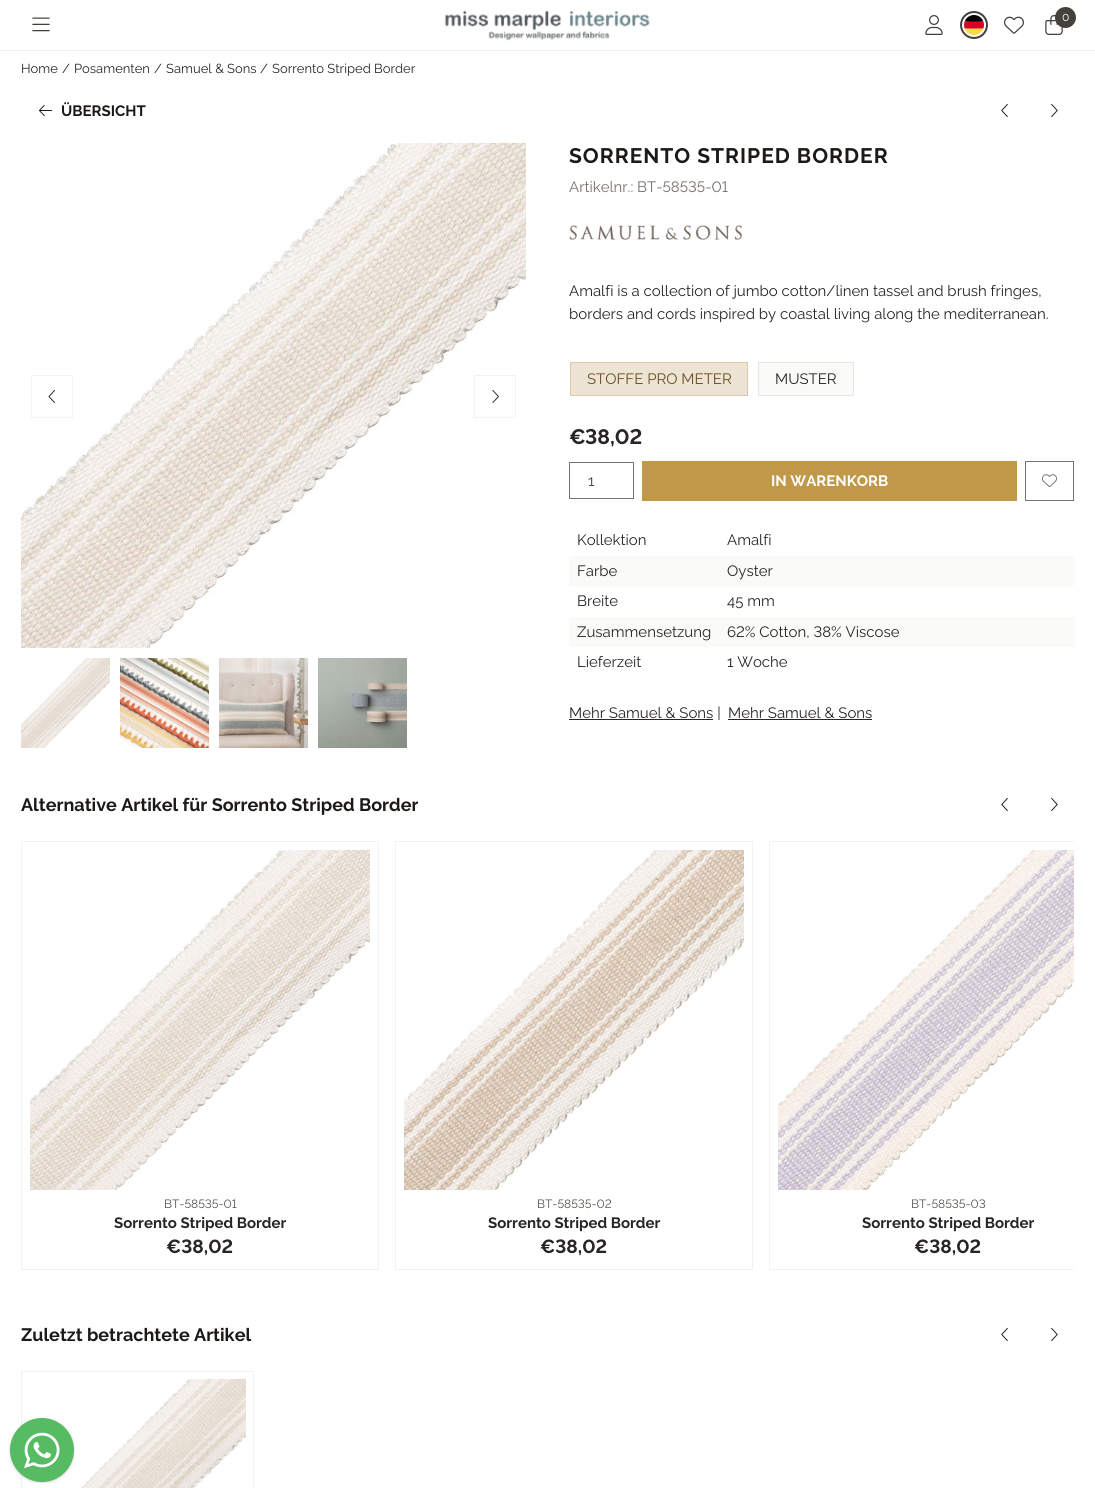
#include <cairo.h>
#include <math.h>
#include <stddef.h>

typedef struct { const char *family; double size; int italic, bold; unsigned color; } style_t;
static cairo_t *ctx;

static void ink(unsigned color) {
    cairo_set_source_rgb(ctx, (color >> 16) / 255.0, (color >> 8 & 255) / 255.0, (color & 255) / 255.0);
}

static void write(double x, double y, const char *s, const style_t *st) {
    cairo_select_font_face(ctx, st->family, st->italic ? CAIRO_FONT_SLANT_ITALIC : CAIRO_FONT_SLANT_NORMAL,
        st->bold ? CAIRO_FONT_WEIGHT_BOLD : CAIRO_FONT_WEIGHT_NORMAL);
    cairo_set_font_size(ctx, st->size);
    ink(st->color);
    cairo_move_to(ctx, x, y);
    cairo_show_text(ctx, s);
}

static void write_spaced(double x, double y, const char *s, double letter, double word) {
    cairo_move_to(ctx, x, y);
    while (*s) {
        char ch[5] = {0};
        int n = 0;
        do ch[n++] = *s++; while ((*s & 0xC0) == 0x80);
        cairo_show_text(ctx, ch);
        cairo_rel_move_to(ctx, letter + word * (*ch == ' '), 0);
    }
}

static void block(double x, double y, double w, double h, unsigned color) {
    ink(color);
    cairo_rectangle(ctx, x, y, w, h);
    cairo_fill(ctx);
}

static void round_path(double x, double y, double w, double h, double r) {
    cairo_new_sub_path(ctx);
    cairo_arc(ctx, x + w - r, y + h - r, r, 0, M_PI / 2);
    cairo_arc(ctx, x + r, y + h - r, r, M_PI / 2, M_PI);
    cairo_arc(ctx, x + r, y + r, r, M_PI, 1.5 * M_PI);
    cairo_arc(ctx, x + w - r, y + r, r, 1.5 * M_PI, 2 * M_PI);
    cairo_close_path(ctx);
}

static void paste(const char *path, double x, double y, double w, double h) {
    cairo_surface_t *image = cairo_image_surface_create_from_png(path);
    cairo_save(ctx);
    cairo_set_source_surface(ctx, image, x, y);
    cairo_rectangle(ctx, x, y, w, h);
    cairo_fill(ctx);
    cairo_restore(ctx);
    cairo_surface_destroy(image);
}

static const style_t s1 = {"Raleway Thin", 12, 0, 0, 0xffffff};
static const style_t s2 = {"Raleway Thin", 13, 0, 0, 0x292524};
static const style_t s3 = {"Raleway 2 Thin", 15, 0, 0, 0x1c1917};
static const style_t s4 = {"Raleway Thin", 15, 0, 0, 0x78716c};
static const style_t s5 = {"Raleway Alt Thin", 15, 0, 0, 0x78716c};
static const style_t s6 = {"Raleway Thin", 15, 0, 0, 0x292524};
static const style_t s7 = {"Raleway Thin", 15, 0, 0, 0x685027};
static const style_t s8 = {"Raleway 2 Thin", 21, 0, 0, 0x292524};
static const style_t s9 = {"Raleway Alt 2 Thin", 21, 0, 0, 0x292524};
static const style_t s10 = {"Raleway Thin", 15, 0, 0, 0x44403c};
static const style_t s11 = {"Raleway 2 Thin", 15, 0, 0, 0xffffff};
static const style_t s12 = {"Raleway Alt Thin", 15, 0, 0, 0x292524};
static const style_t s13 = {"Raleway 2 Thin", 18, 0, 0, 0x1c1917};
static const style_t s14 = {"Raleway Alt Thin", 12, 0, 0, 0x57534e};
static const style_t s15 = {"Raleway 2 Thin", 15, 0, 0, 0x292524};
static const style_t s16 = {"Raleway Alt 2 Thin", 19, 0, 0, 0x292524};

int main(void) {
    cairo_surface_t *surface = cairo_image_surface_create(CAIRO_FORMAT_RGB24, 1095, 1488);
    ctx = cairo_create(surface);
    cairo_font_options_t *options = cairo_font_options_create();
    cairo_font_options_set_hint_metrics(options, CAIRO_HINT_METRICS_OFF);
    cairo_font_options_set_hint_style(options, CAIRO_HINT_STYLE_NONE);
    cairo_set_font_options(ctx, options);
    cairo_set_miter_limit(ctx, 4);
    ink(0xffffff);
    cairo_paint(ctx);
    block(0, 50, 1095, 1, 0xf2f2f2);
    paste("pic1.png", 32, 17, 18, 15);
    paste("pic2.png", 444, 10, 206, 31);
    paste("pic3.png", 925, 15, 18, 20);
    cairo_arc(ctx, 974, 25, 13, 0, 2 * M_PI);
    ink(0x44403c);
    cairo_stroke(ctx);
    paste("pic4.png", 964, 15, 20, 20);
    paste("pic5.png", 1004, 16, 20, 18);
    paste("pic6.png", 1045, 15, 18, 20);
    cairo_arc(ctx, 1065.5, 17.5, 10.5, 0, 2 * M_PI);
    cairo_fill(ctx);
    write(1062, 21, "0", &s1);
    write(21, 73, "Home", &s2);
    write(62, 73, "/", &s2);
    write(74, 73, "Posamenten", &s2);
    write(154, 73, "/", &s2);
    write(166, 73, "Samuel & Sons", &s2);
    write(260, 73, "/", &s2);
    write(272, 73, "Sorrento Striped Border", &s2);
    paste("pic7.png", 39, 104, 13, 13);
    write(61, 116, "ÜBERSICHT", &s3);
    paste("pic8.png", 1001, 104, 7, 13);
    paste("pic9.png", 1051, 104, 7, 13);
    paste("pic10.png", 21, 143, 505, 505);
    cairo_rectangle(ctx, 31.5, 375.5, 41, 42);
    cairo_set_source_rgba(ctx, 0, 0, 0, 0.05);
    cairo_set_line_width(ctx, 1);
    cairo_stroke(ctx);
    paste("pic11.png", 48, 390, 7, 13);
    cairo_set_source_rgba(ctx, 1, 1, 1, 0.85);
    round_path(474, 375, 42, 43, 21);
    cairo_fill(ctx);
    cairo_rectangle(ctx, 474.5, 375.5, 41, 42);
    cairo_set_source_rgba(ctx, 0, 0, 0, 0.05);
    cairo_stroke(ctx);
    paste("pic12.png", 492, 390, 7, 13);
    paste("pic13.png", 21, 658, 89, 90);
    paste("pic14.png", 120, 658, 89, 90);
    paste("pic15.png", 219, 658, 89, 90);
    paste("pic16.png", 318, 658, 89, 90);
    cairo_set_font_size(ctx, 21);
    ink(0x1c1917);
    write_spaced(569, 163, "SORRENTO STRIPED BORDER", 1, 0);
    write(569, 192, "Artikelnr.:", &s4);
    write(637, 192, "BT-58535-01", &s5);
    paste("pic17.png", 569, 225, 173, 15);
    write(569, 296, "Amalfi is a collection of jumbo cotton/linen tassel and brush fringes,", &s6);
    write(569, 319, "borders and cords inspired by coastal living along the mediterranean.", &s6);
    cairo_rectangle(ctx, 570.5, 362.5, 177, 33);
    ink(0xddc9a6);
    cairo_stroke(ctx);
    block(571, 363, 176, 32, 0xeee4d3);
    write(587, 384, "STOFFE PRO METER", &s7);
    cairo_rectangle(ctx, 758.5, 362.5, 95, 33);
    ink(0xe7e5e4);
    cairo_stroke(ctx);
    block(759, 363, 94, 32, 0xfafaf9);
    write(775, 384, "MUSTER", &s6);
    write(569, 444, "€", &s8);
    write(585, 444, "38,02", &s9);
    cairo_rectangle(ctx, 569.5, 462.5, 64, 36);
    ink(0x78716c);
    cairo_stroke(ctx);
    write(588, 486, "1", &s10);
    block(642, 461, 375, 40, 0xc09847);
    write(771, 486, "IN WARENKORB", &s11);
    cairo_rectangle(ctx, 1025.5, 461.5, 48, 39);
    ink(0x78716c);
    cairo_stroke(ctx);
    paste("pic18.png", 1042, 474, 15, 13);
    write(577, 545, "Kollektion", &s6);
    write(727, 545, "Amalfi", &s6);
    block(569, 556, 505, 30, 0xfafaf9);
    write(577, 576, "Farbe", &s6);
    write(727, 576, "Oyster", &s6);
    write(577, 606, "Breite", &s6);
    write(727, 606, "45 mm", &s6);
    block(569, 617, 505, 30, 0xfafaf9);
    write(577, 637, "Zusammensetzung", &s6);
    write(727, 637, "62% Cotton, 38% Viscose", &s12);
    write(577, 667, "Lieferzeit", &s6);
    write(727, 667, "1 Woche", &s6);
    block(569, 719, 144, 1, 0x292524);
    write(569, 718, "Mehr Samuel & Sons |", &s6);
    write(728, 718, "Mehr Samuel & Sons", &s6);
    block(728, 719, 144, 1, 0x292524);
    write(21, 811, "Alternative Artikel für Sorrento Striped Border", &s13);
    paste("pic8.png", 1001, 798, 7, 13);
    paste("pic9.png", 1051, 798, 7, 13);
    cairo_rectangle(ctx, 21.5, 841.5, 357, 428);
    ink(0xf2f2f2);
    cairo_stroke(ctx);
    paste("pic19.png", 30, 850, 340, 340);
    write(164, 1208, "BT-58535-01", &s14);
    write(114, 1228, "Sorrento Striped Border", &s15);
    write(166, 1253, "€38,02", &s16);
    cairo_rectangle(ctx, 395.5, 841.5, 357, 428);
    ink(0xf2f2f2);
    cairo_stroke(ctx);
    paste("pic20.png", 404, 850, 340, 340);
    write(537, 1208, "BT-58535-02", &s14);
    write(488, 1228, "Sorrento Striped Border", &s15);
    write(540, 1253, "€38,02", &s16);
    cairo_save(ctx);
    cairo_rectangle(ctx, 21, 784, 1053, 494);
    cairo_clip(ctx);
    cairo_rectangle(ctx, 769.5, 841.5, 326, 428);
    ink(0xf2f2f2);
    cairo_stroke(ctx);
    cairo_restore(ctx);
    paste("pic21.png", 778, 850, 296, 340);
    write(911, 1208, "BT-58535-03", &s14);
    write(862, 1228, "Sorrento Striped Border", &s15);
    write(914, 1253, "€38,02", &s16);
    write(21, 1341, "Zuletzt betrachtete Artikel", &s13);
    paste("pic8.png", 1001, 1328, 7, 13);
    paste("pic9.png", 1051, 1328, 7, 13);
    cairo_rectangle(ctx, 21.5, 1371.5, 232, 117);
    ink(0xf2f2f2);
    cairo_stroke(ctx);
    paste("pic22.png", 81, 1379, 165, 109);
    paste("pic23.png", 9, 1417, 66, 66);
    cairo_surface_write_to_png(surface, "screenshot.png");
    cairo_font_options_destroy(options);
    cairo_destroy(ctx);
    cairo_surface_destroy(surface);
    return 0;
}
